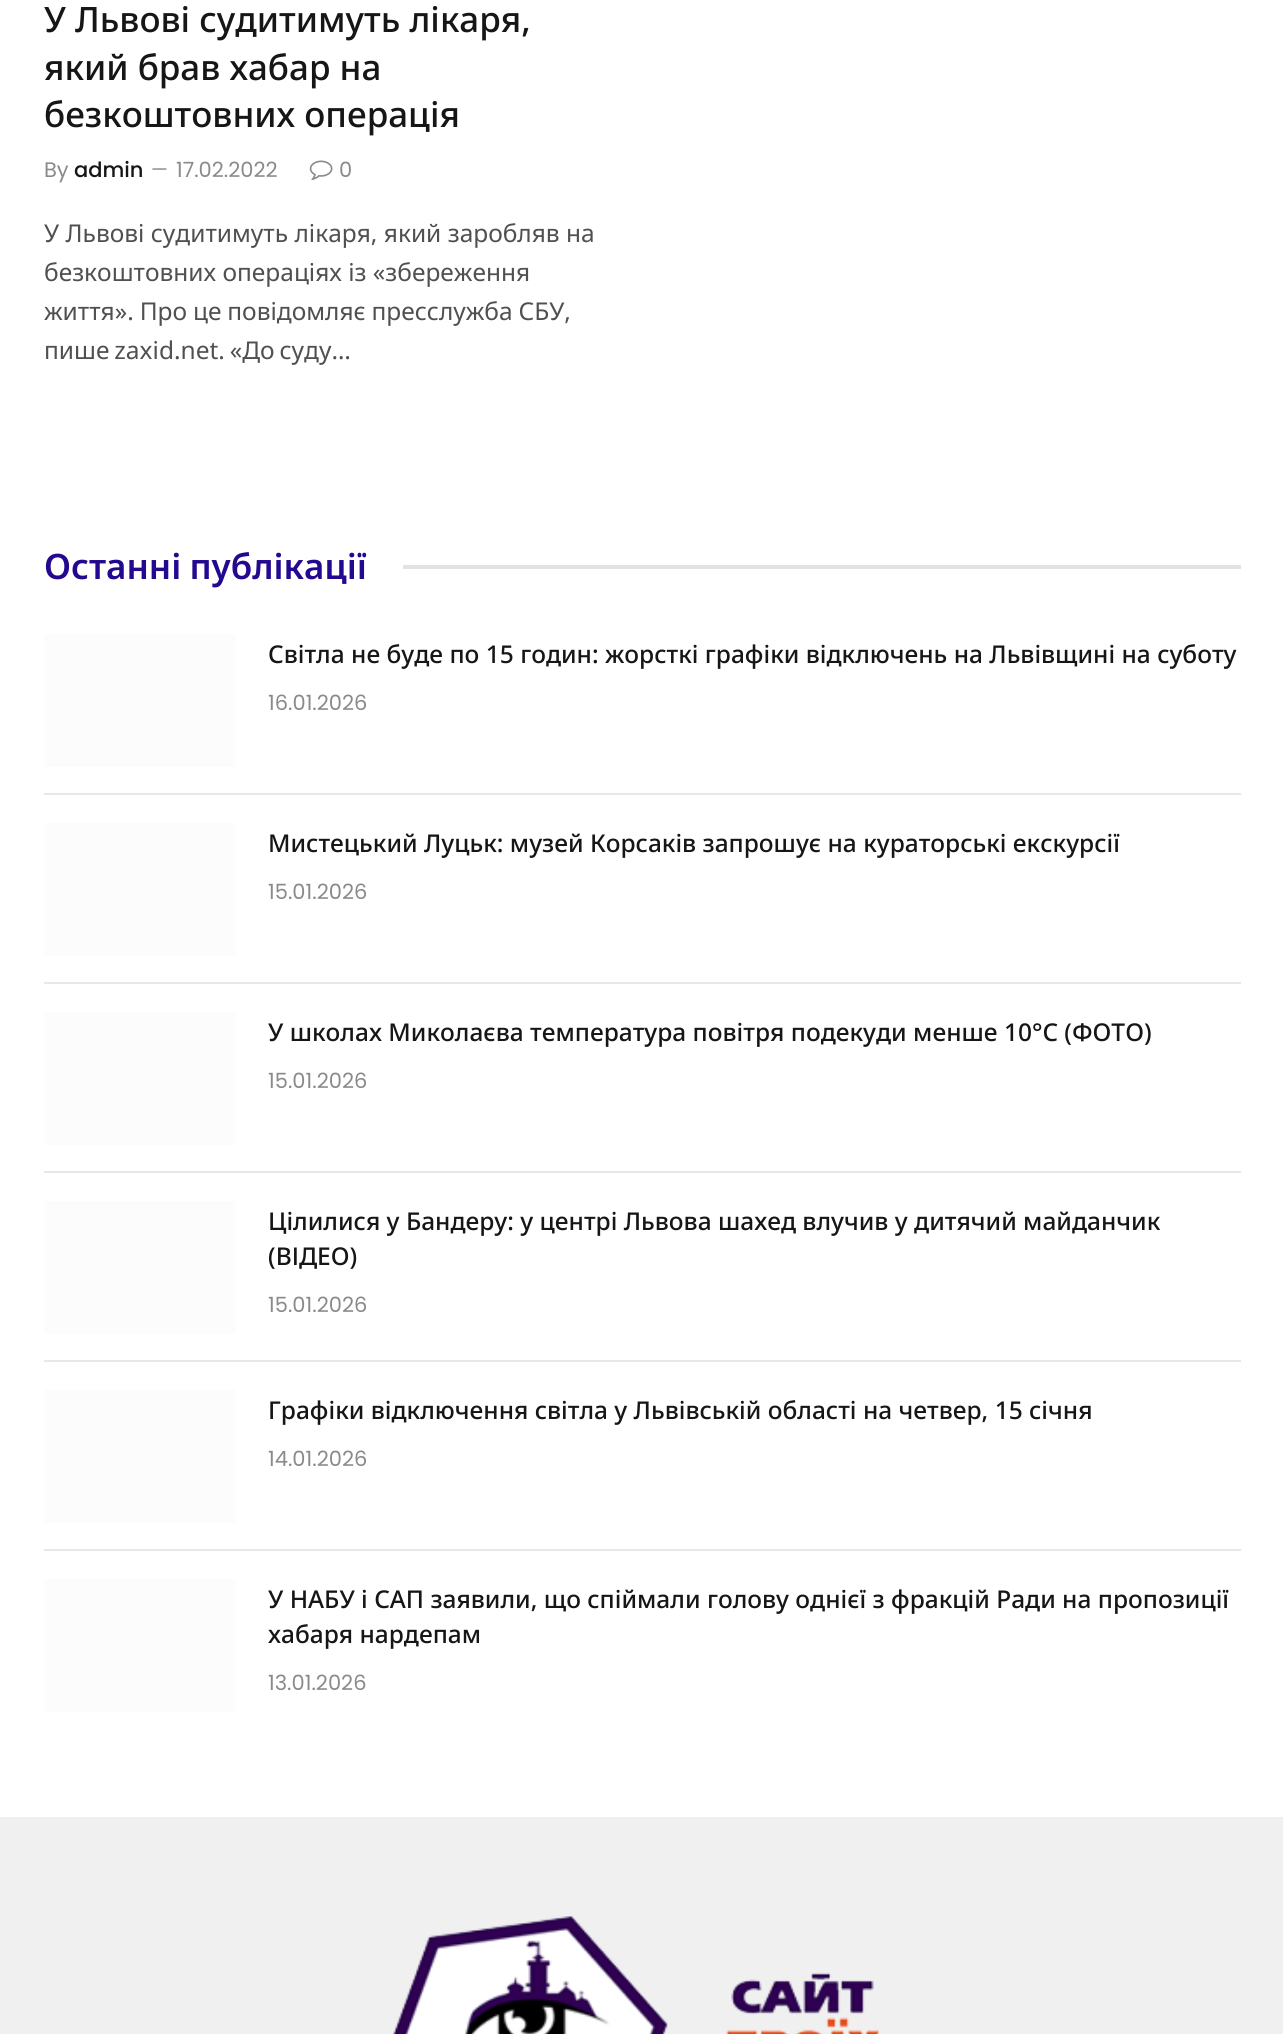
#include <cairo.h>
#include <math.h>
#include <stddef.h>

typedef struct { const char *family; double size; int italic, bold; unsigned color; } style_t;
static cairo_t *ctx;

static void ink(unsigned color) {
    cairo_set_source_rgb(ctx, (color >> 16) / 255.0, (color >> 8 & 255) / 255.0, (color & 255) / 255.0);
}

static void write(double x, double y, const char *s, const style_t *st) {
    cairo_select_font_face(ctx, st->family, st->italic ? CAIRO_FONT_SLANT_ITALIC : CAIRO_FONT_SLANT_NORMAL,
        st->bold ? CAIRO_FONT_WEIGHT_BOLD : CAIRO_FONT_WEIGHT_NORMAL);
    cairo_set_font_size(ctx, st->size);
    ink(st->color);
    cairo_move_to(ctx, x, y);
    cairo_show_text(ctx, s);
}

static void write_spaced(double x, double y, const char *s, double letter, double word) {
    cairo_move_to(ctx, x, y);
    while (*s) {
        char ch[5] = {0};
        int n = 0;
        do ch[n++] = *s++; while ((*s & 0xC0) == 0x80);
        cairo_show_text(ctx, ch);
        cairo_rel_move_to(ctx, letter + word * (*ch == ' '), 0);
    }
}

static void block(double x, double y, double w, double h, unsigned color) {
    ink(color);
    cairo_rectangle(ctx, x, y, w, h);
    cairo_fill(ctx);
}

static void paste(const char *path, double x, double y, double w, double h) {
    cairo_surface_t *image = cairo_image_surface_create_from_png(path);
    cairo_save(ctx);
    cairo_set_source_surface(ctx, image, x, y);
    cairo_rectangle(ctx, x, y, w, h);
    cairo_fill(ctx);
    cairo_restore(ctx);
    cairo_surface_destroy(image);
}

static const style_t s1 = {"Noto Sans Medium", 35, 0, 0, 0x161616};
static const style_t s2 = {"Poppins", 21, 0, 0, 0x8a8a8a};
static const style_t s3 = {"Poppins Medium", 21, 0, 0, 0x161616};
static const style_t s4 = {"Poppins", 19, 0, 0, 0x8a8a8a};
static const style_t s5 = {"Noto Sans", 24.5, 0, 0, 0x505050};
static const style_t s6 = {"Noto Sans Medium", 24.5, 0, 0, 0x161616};

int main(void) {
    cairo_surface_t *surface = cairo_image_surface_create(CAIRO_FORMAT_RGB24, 1283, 2034);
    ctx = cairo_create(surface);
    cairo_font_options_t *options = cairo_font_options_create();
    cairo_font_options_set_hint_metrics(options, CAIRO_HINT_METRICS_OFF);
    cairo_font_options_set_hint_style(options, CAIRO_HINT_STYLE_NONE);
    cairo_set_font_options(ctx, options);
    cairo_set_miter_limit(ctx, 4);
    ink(0xffffff);
    cairo_paint(ctx);
    write(44, 32, "У Львові судитимуть лікаря,", &s1);
    write(44, 80, "який брав хабар на", &s1);
    write(44, 127, "безкоштовних операція", &s1);
    write(44, 177, "By", &s2);
    write(74, 177, "admin", &s3);
    write(151, 176, "—", &s4);
    write(176, 177, "17.02.2022", &s2);
    paste("pic1.png", 309, 160, 24, 20);
    write(339, 177, "0", &s2);
    write(44, 242, "У Львові судитимуть лікаря, який заробляв на", &s5);
    write(44, 281, "безкоштовних операціях із «збереження", &s5);
    write_spaced(44, 320, "життя». Про це повідомляє пресслужба СБУ,", 0, -0.5);
    write_spaced(44, 359, "пише zaxid.net. «До суду…", 0, -1.5);
    cairo_select_font_face(ctx, "Noto Sans SemiBold", CAIRO_FONT_SLANT_NORMAL, CAIRO_FONT_WEIGHT_NORMAL);
    cairo_set_font_size(ctx, 35);
    ink(0x240890);
    write_spaced(44, 579, "Останні публікації", 0, -1);
    block(403, 565, 838, 4, 0xe2e2e2);
    block(44, 634, 192, 133, 0xfcfcfc);
    write(268, 663, "Світла не буде по 15 годин: жорсткі графіки відключень на Львівщині на суботу", &s6);
    write(268, 710, "16.01.2026", &s2);
    block(44, 793, 1197, 2, 0xe8e8e8);
    block(44, 823, 192, 133, 0xfcfcfc);
    write(268, 852, "Мистецький Луцьк: музей Корсаків запрошує на кураторські екскурсії", &s6);
    write(268, 899, "15.01.2026", &s2);
    block(44, 982, 1197, 2, 0xe8e8e8);
    block(44, 1012, 192, 133, 0xfcfcfc);
    write(268, 1041, "У школах Миколаєва температура повітря подекуди менше 10°C (ФОТО)", &s6);
    write(268, 1088, "15.01.2026", &s2);
    block(44, 1171, 1197, 2, 0xe8e8e8);
    block(44, 1201, 192, 133, 0xfcfcfc);
    write(268, 1230, "Цілилися у Бандеру: у центрі Львова шахед влучив у дитячий майданчик", &s6);
    write(268, 1265, "(ВІДЕО)", &s6);
    write(268, 1312, "15.01.2026", &s2);
    block(44, 1360, 1197, 2, 0xe8e8e8);
    block(44, 1390, 192, 133, 0xfcfcfc);
    write(268, 1419, "Графіки відключення світла у Львівській області на четвер, 15 січня", &s6);
    write(268, 1466, "14.01.2026", &s2);
    block(44, 1549, 1197, 2, 0xe8e8e8);
    block(44, 1579, 192, 133, 0xfcfcfc);
    write(268, 1608, "У НАБУ і САП заявили, що спіймали голову однієї з фракцій Ради на пропозиції", &s6);
    write(268, 1643, "хабаря нардепам", &s6);
    write(268, 1690, "13.01.2026", &s2);
    block(0, 1817, 1283, 217, 0xf0f0f0);
    paste("pic2.png", 393, 1916, 486, 118);
    cairo_surface_write_to_png(surface, "screenshot.png");
    cairo_font_options_destroy(options);
    cairo_destroy(ctx);
    cairo_surface_destroy(surface);
    return 0;
}
